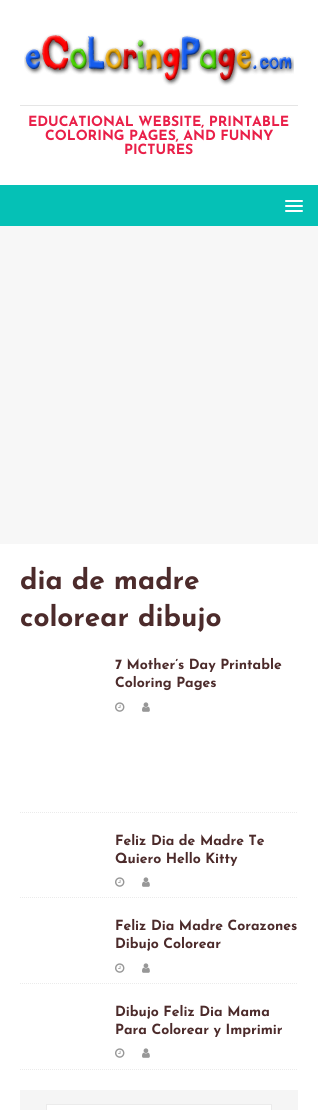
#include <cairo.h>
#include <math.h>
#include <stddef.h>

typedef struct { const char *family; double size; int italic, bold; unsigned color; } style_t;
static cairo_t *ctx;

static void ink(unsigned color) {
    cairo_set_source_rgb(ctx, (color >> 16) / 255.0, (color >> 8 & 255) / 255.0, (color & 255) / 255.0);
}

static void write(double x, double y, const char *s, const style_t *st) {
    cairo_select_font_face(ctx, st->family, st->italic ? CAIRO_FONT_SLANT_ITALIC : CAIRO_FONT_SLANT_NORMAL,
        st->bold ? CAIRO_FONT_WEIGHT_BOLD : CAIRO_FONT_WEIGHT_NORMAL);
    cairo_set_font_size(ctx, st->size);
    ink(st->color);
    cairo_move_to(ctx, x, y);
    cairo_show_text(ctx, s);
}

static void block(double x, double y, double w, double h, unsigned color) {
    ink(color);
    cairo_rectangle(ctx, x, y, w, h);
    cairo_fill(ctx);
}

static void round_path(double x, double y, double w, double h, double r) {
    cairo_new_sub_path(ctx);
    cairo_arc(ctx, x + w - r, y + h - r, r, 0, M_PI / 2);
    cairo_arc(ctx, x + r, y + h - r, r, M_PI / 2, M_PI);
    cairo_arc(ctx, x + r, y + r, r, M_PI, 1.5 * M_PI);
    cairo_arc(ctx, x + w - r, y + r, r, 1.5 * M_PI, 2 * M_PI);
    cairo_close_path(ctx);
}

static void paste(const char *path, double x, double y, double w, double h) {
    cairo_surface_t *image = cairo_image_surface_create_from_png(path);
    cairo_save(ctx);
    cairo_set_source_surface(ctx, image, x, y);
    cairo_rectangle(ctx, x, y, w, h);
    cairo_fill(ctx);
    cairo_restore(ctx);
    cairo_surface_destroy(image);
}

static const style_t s1 = {"Josefin Sans", 14, 0, 1, 0xe91f48};
static const style_t s2 = {"Josefin Sans", 28, 0, 1, 0x4c2b2b};
static const style_t s3 = {"Josefin Sans", 14, 0, 1, 0x4c2b2b};

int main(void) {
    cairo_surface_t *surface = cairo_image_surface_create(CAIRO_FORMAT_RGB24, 318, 1110);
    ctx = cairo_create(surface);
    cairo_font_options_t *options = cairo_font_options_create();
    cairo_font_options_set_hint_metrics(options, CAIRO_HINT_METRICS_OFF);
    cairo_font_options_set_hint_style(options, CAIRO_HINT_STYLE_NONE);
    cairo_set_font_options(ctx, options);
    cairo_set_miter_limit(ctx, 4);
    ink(0xf7f7f7);
    cairo_paint(ctx);
    block(0, 0, 318, 185, 0xffffff);
    paste("pic1.png", 24, 34, 270, 52);
    block(20, 105, 278, 1, 0xe5e5e5);
    write(28, 126, "EDUCATIONAL WEBSITE, PRINTABLE", &s1);
    write(45, 140, "COLORING PAGES, AND FUNNY", &s1);
    write(124, 154, "PICTURES", &s1);
    block(0, 185, 318, 41, 0x05c1b6);
    ink(0xffffff);
    round_path(285, 200, 18, 2, 1);
    cairo_fill(ctx);
    round_path(285, 205, 18, 2, 1);
    cairo_fill(ctx);
    round_path(285, 210, 18, 2, 1);
    cairo_fill(ctx);
    block(0, 544, 318, 566, 0xffffff);
    write(20, 589, "dia de madre", &s2);
    write(20, 626, "colorear dibujo", &s2);
    cairo_new_path(ctx);
    cairo_move_to(ctx, 20, 812.5);
    cairo_line_to(ctx, 298, 812.5);
    ink(0xebebeb);
    cairo_set_line_width(ctx, 1);
    cairo_set_dash(ctx, (double[]){1, 1}, 2, 0);
    cairo_stroke(ctx);
    write(115, 669, "7 Mother’s Day Printable", &s3);
    write(115, 687, "Coloring Pages", &s3);
    paste("pic2.png", 115, 702, 10, 10);
    paste("pic3.png", 142, 702, 8, 10);
    cairo_new_path(ctx);
    cairo_move_to(ctx, 20, 897.5);
    cairo_line_to(ctx, 298, 897.5);
    ink(0xebebeb);
    cairo_stroke(ctx);
    write(115, 845, "Feliz Dia de Madre Te", &s3);
    write(115, 863, "Quiero Hello Kitty", &s3);
    paste("pic2.png", 115, 877, 10, 10);
    paste("pic3.png", 142, 877, 8, 10);
    cairo_new_path(ctx);
    cairo_move_to(ctx, 20, 983.5);
    cairo_line_to(ctx, 298, 983.5);
    ink(0xebebeb);
    cairo_stroke(ctx);
    write(115, 930, "Feliz Dia Madre Corazones", &s3);
    write(115, 948, "Dibujo Colorear", &s3);
    paste("pic2.png", 115, 963, 10, 10);
    paste("pic3.png", 142, 963, 8, 10);
    cairo_new_path(ctx);
    cairo_move_to(ctx, 20, 1069.5);
    cairo_line_to(ctx, 298, 1069.5);
    ink(0xebebeb);
    cairo_stroke(ctx);
    write(115, 1016, "Dibujo Feliz Dia Mama", &s3);
    write(115, 1034, "Para Colorear y Imprimir", &s3);
    paste("pic2.png", 115, 1048, 10, 10);
    paste("pic3.png", 142, 1048, 8, 10);
    block(20, 1090, 278, 20, 0xf5f5f5);
    ink(0xffffff);
    cairo_rectangle(ctx, 46.5, 1104.5, 225, 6);
    cairo_fill_preserve(ctx);
    ink(0xebebeb);
    cairo_set_dash(ctx, NULL, 0, 0);
    cairo_stroke(ctx);
    cairo_surface_write_to_png(surface, "screenshot.png");
    cairo_font_options_destroy(options);
    cairo_destroy(ctx);
    cairo_surface_destroy(surface);
    return 0;
}
